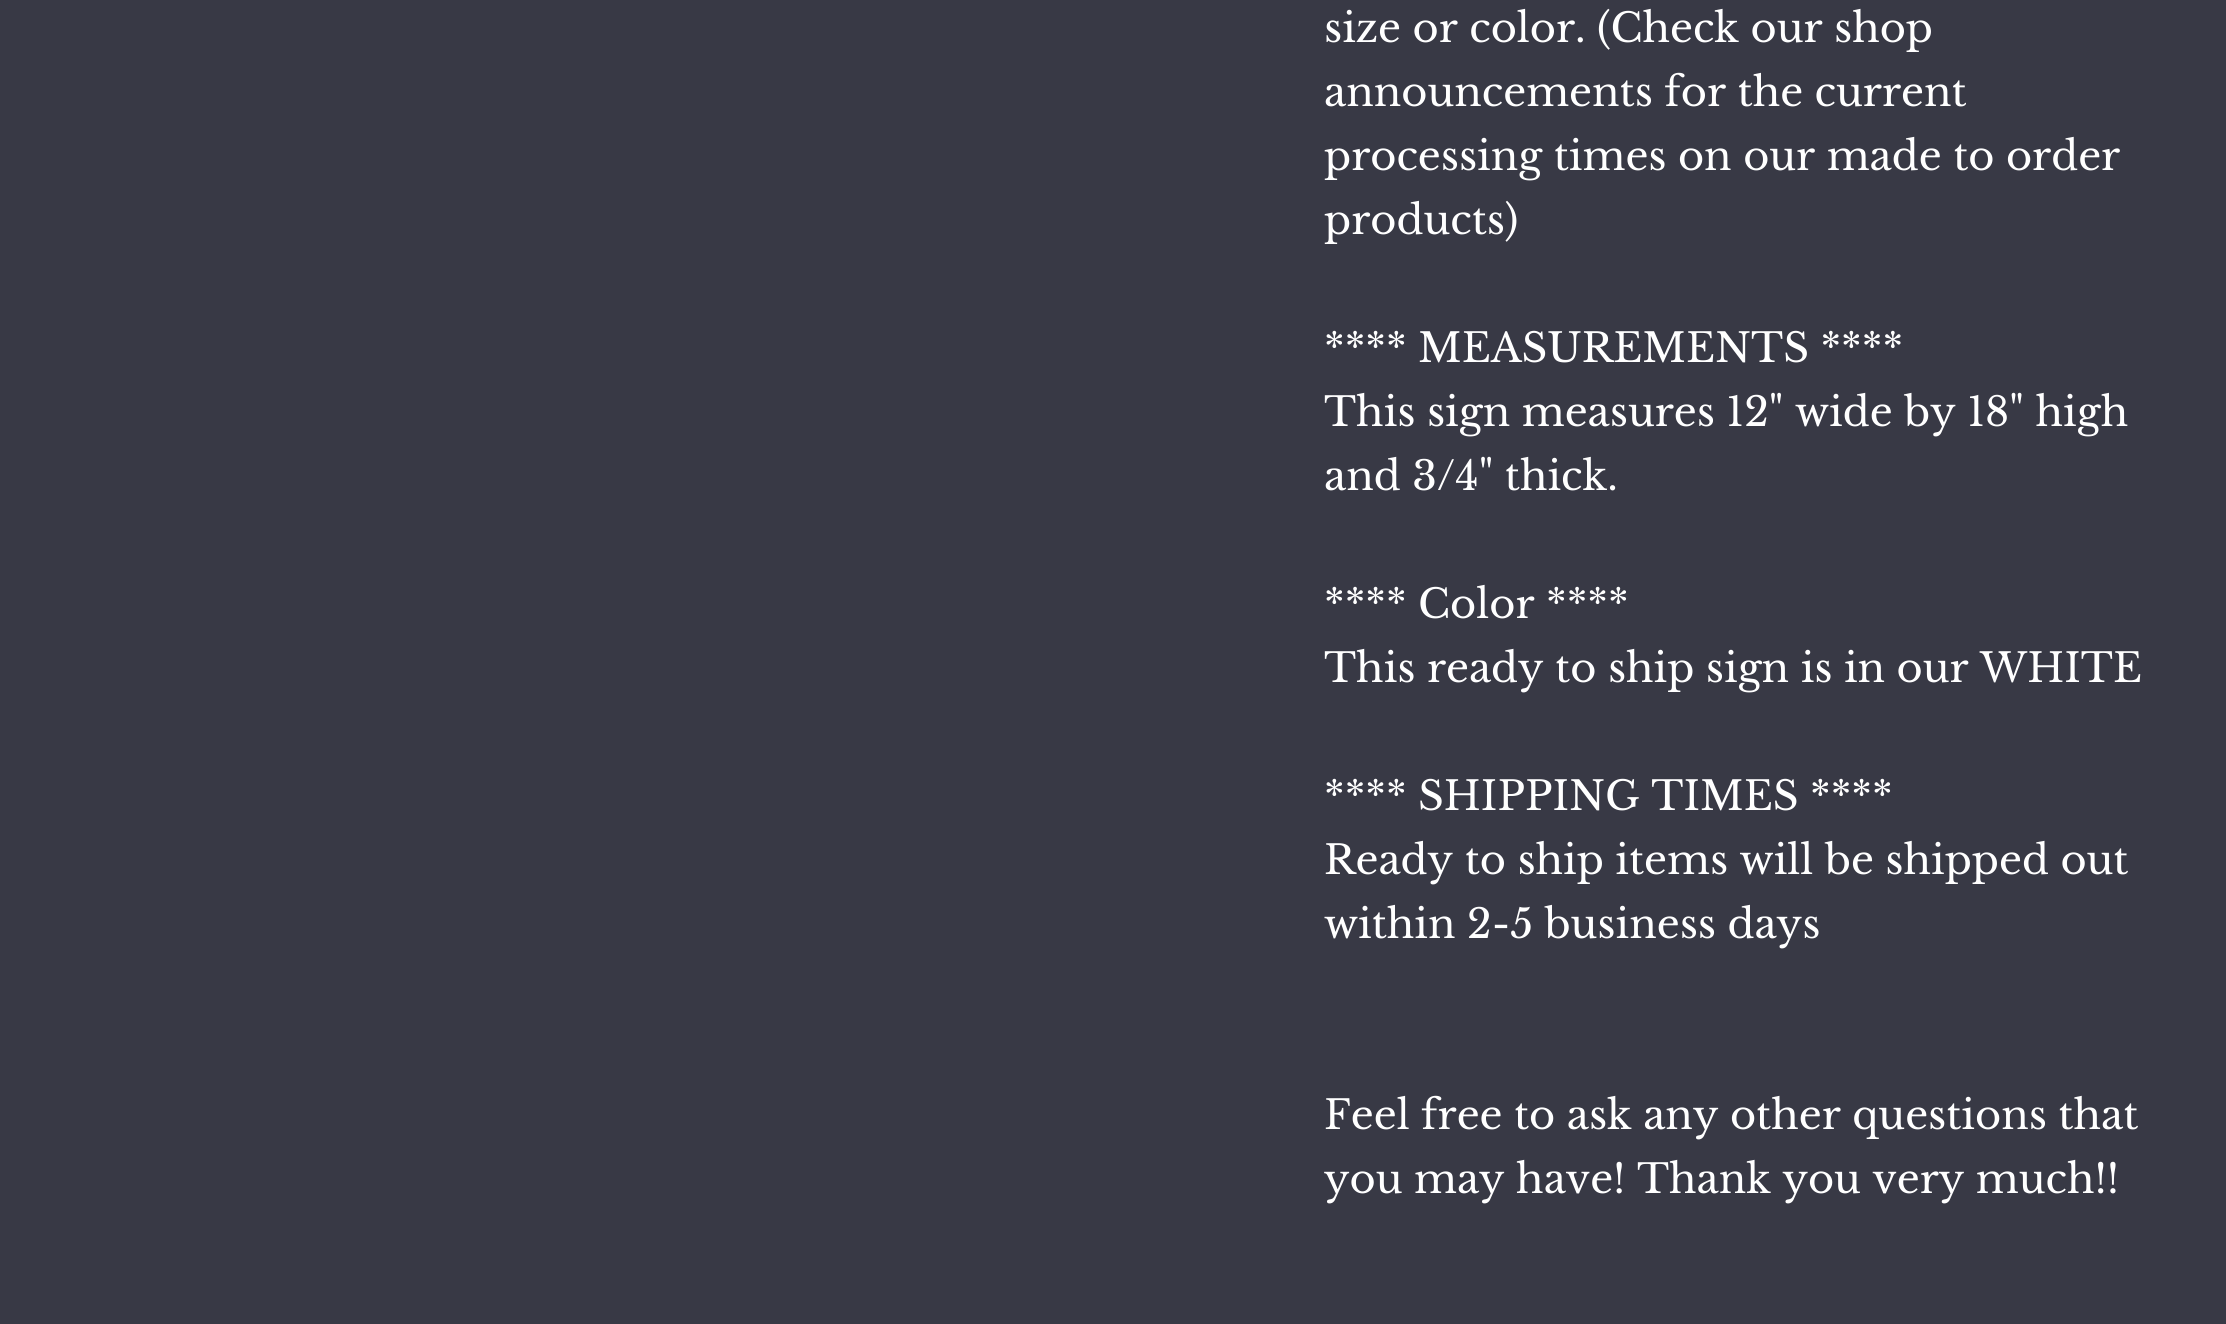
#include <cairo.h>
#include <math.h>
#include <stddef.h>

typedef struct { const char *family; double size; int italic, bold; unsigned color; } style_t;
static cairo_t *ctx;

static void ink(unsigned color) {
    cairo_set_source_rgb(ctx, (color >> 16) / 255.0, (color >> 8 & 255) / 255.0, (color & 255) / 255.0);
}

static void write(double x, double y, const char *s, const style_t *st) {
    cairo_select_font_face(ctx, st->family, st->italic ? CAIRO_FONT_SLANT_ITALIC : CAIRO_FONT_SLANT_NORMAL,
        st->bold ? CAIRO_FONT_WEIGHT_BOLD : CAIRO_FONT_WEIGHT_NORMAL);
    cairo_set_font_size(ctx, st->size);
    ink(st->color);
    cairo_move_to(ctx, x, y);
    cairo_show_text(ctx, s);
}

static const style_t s1 = {"Libre Baskerville", 40, 0, 0, 0xffffff};

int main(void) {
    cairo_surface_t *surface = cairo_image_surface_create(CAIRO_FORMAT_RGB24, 2226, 1324);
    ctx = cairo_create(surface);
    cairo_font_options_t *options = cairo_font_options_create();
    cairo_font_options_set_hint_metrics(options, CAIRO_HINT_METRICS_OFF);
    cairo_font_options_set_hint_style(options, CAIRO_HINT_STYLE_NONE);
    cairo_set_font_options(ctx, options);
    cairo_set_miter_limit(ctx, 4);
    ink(0x383945);
    cairo_paint(ctx);
    write(1324, 42, "size or color. (Check our shop", &s1);
    write(1324, 106, "announcements for the current", &s1);
    write(1324, 170, "processing times on our made to order", &s1);
    write(1324, 234, "products)", &s1);
    write(1324, 362, "**** MEASUREMENTS ****", &s1);
    write(1324, 426, "This sign measures 12\" wide by 18\" high", &s1);
    write(1324, 490, "and 3/4\" thick.", &s1);
    write(1324, 618, "**** Color ****", &s1);
    write(1324, 682, "This ready to ship sign is in our WHITE", &s1);
    write(1324, 810, "**** SHIPPING TIMES ****", &s1);
    write(1324, 874, "Ready to ship items will be shipped out", &s1);
    write(1324, 938, "within 2-5 business days", &s1);
    write(1324, 1129, "Feel free to ask any other questions that", &s1);
    write(1324, 1193, "you may have! Thank you very much!!", &s1);
    cairo_surface_write_to_png(surface, "screenshot.png");
    cairo_font_options_destroy(options);
    cairo_destroy(ctx);
    cairo_surface_destroy(surface);
    return 0;
}
